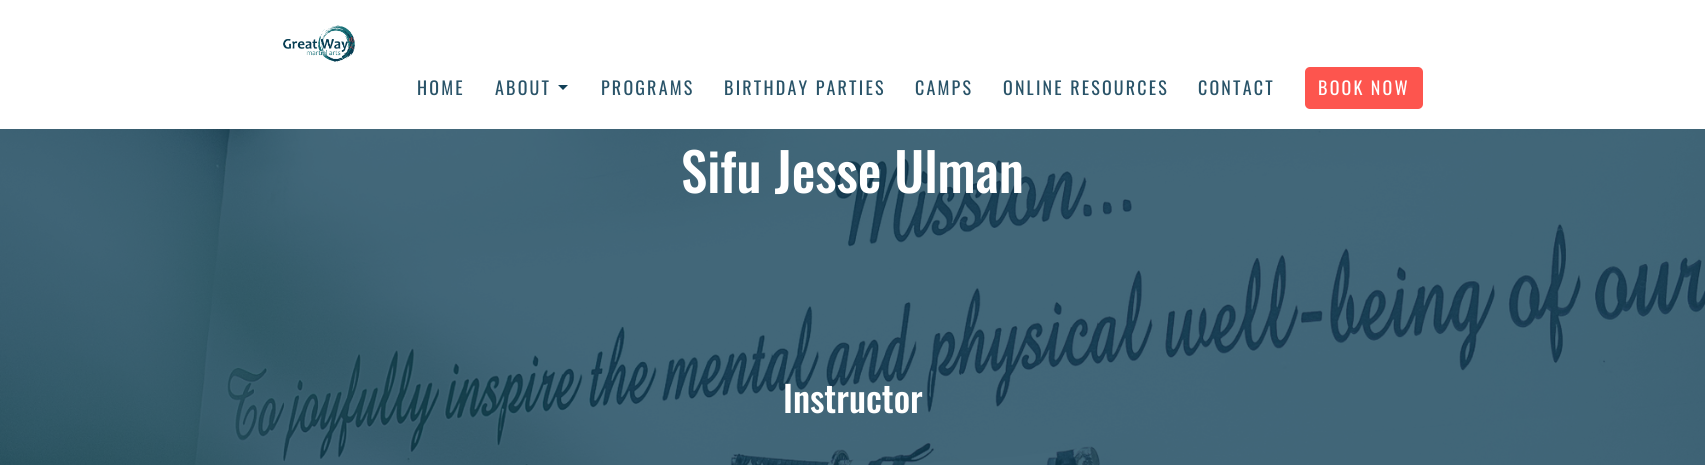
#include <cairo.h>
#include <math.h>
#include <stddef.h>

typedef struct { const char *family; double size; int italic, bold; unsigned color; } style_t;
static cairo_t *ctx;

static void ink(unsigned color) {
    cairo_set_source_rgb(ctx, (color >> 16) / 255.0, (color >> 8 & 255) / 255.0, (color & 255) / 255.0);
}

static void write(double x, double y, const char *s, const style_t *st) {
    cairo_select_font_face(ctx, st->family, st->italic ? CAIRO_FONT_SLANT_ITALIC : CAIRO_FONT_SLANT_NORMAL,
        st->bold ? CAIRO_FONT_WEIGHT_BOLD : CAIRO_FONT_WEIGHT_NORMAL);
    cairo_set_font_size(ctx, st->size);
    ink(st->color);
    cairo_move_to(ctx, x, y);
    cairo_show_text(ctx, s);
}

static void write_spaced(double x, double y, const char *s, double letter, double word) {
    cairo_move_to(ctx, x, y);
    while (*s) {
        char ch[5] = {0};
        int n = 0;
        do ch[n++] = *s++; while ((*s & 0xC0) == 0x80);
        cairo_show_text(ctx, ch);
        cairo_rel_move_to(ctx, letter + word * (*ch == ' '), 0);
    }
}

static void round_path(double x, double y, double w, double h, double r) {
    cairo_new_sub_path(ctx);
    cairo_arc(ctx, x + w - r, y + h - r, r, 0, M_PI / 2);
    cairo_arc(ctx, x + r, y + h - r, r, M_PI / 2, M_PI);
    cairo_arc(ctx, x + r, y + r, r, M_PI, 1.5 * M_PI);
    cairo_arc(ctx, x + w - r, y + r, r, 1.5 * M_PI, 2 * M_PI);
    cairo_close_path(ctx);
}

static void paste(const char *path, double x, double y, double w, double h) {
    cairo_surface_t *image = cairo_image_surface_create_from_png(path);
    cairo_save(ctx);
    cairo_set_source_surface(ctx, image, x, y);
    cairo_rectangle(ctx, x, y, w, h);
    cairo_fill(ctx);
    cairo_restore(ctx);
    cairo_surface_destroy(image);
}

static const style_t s1 = {"Oswald Medium", 53, 0, 0, 0xffffff};
static const style_t s2 = {"Oswald Medium", 36, 0, 0, 0xffffff};

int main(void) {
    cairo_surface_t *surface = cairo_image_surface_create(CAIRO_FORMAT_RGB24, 1705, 465);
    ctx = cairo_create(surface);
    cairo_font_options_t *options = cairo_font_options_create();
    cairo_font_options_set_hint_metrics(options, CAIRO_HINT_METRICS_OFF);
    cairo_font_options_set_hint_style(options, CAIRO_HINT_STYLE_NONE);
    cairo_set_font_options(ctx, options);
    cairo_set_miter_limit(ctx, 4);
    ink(0xffffff);
    cairo_paint(ctx);
    paste("pic1.png", 283, 25, 72, 38);
    cairo_select_font_face(ctx, "Oswald", CAIRO_FONT_SLANT_NORMAL, CAIRO_FONT_WEIGHT_NORMAL);
    cairo_set_font_size(ctx, 18);
    ink(0x295368);
    write_spaced(417, 95, "HOME", 2.2, 0);
    write_spaced(495, 95, "ABOUT", 2.2, 0);
    ink(0x114057);
    cairo_new_path(ctx);
    cairo_move_to(ctx, 558, 85);
    cairo_line_to(ctx, 563, 90);
    cairo_line_to(ctx, 568, 85);
    cairo_close_path(ctx);
    cairo_fill(ctx);
    ink(0x295368);
    write_spaced(601, 95, "PROGRAMS", 2.2, 0);
    write_spaced(724, 95, "BIRTHDAY PARTIES", 2.2, 0);
    write_spaced(915, 95, "CAMPS", 2.2, 0);
    write_spaced(1003, 95, "ONLINE RESOURCES", 2.2, 0);
    write_spaced(1198, 95, "CONTACT", 2.2, 0);
    ink(0xfd554e);
    round_path(1305, 67, 118, 42, 5);
    cairo_fill(ctx);
    ink(0xffffff);
    write_spaced(1318, 95, "BOOK NOW", 2.2, 0);
    paste("pic2.png", 0, 129, 1705, 336);
    write(681, 193, "Sifu Jesse Ulman", &s1);
    write(783, 413, "Instructor", &s2);
    cairo_surface_write_to_png(surface, "screenshot.png");
    cairo_font_options_destroy(options);
    cairo_destroy(ctx);
    cairo_surface_destroy(surface);
    return 0;
}
